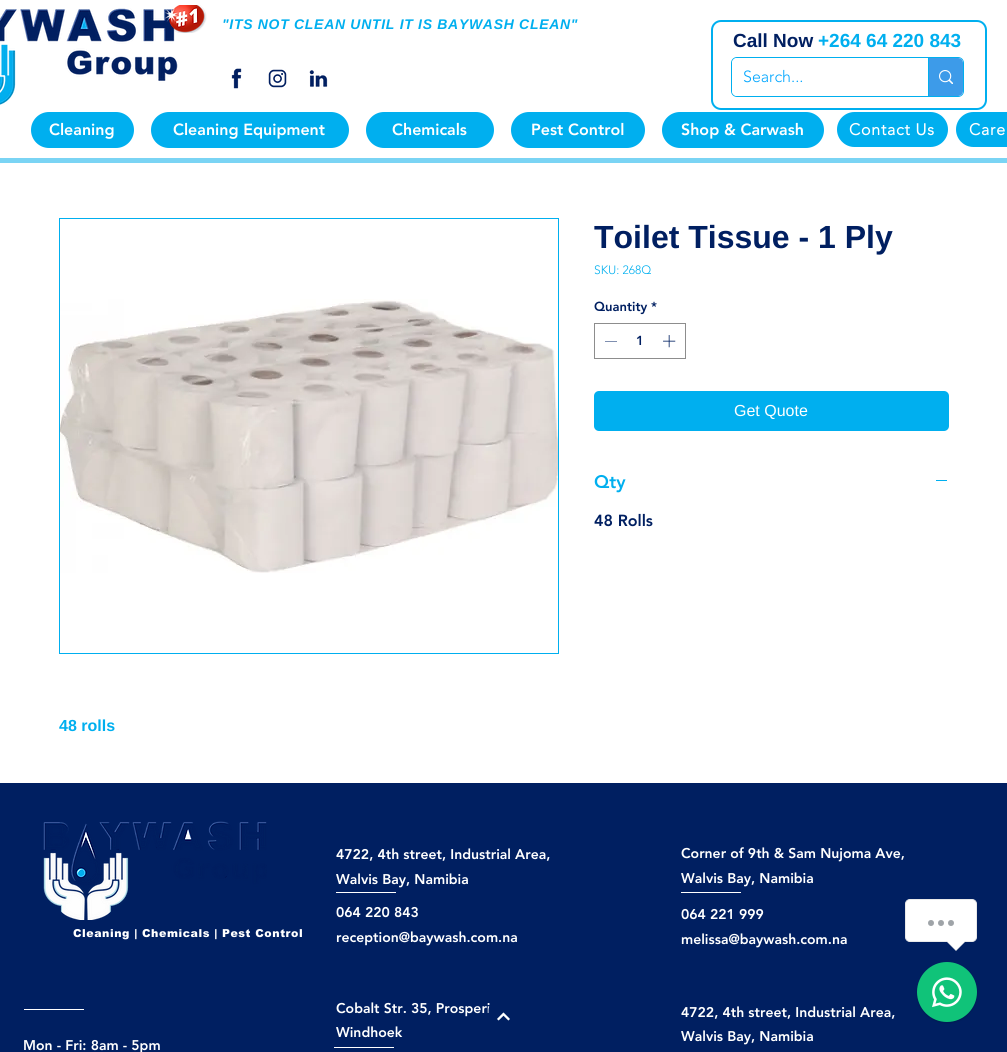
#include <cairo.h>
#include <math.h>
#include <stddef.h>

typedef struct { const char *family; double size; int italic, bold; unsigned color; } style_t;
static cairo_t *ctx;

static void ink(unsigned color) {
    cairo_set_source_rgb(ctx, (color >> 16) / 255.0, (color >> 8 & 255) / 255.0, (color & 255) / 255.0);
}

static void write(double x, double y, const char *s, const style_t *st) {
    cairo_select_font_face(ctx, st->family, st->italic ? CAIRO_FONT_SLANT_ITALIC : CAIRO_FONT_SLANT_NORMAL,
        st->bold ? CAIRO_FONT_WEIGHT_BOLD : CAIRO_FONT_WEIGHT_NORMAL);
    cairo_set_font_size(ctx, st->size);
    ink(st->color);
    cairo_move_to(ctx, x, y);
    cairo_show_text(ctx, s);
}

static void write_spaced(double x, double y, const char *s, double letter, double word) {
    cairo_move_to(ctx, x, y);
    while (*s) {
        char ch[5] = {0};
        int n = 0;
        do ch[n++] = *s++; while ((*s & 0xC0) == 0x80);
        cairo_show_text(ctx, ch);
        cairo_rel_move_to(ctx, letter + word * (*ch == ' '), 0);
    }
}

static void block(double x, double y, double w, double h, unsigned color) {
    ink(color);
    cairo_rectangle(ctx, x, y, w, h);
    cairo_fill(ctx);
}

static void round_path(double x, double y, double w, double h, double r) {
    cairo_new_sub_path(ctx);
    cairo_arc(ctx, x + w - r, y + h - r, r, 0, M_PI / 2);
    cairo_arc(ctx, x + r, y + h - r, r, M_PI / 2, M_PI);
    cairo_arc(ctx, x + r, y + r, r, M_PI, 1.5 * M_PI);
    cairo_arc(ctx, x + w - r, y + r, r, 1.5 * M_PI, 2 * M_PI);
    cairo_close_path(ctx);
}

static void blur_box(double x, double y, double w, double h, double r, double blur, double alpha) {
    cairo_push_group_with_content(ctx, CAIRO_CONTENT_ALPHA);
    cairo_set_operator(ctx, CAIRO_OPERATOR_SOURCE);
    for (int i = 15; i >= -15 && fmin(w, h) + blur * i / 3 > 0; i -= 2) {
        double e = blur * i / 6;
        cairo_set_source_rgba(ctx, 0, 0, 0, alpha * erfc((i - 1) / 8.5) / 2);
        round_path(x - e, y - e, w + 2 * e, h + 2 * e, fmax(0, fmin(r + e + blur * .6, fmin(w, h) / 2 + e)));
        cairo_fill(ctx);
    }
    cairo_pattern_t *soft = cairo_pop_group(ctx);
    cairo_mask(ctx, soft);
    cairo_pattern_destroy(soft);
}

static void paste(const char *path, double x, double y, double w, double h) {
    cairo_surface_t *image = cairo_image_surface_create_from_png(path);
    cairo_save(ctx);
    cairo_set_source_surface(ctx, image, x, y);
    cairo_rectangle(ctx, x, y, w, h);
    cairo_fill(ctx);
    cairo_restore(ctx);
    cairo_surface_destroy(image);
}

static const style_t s1 = {"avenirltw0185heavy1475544 Black", 16, 0, 0, 0xffffff};
static const style_t s2 = {"Liberation Sans", 19, 0, 1, 0x001f61};
static const style_t s3 = {"Liberation Sans", 19, 0, 1, 0x00afef};
static const style_t s4 = {"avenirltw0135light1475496 Light", 16, 0, 0, 0x00a6ff};
static const style_t s5 = {"Liberation Sans", 32, 0, 1, 0x001f61};
static const style_t s6 = {"avenirltw0135light1475496 Light", 12, 0, 0, 0x00afef};
static const style_t s7 = {"avenirltw0185heavy1475544 Black", 13, 0, 0, 0x001f61};
static const style_t s8 = {"Liberation Sans", 16, 0, 0, 0xffffff};
static const style_t s9 = {"avenirltw0185heavy1475544 Black", 18, 0, 0, 0x00afef};
static const style_t s10 = {"avenirltw0185heavy1475544 Black", 16, 0, 0, 0x001f61};
static const style_t s11 = {"Liberation Sans", 16, 0, 1, 0x00afef};
static const style_t s12 = {"avenirltw0185heavy1475544 Black", 14, 0, 0, 0xffffff};

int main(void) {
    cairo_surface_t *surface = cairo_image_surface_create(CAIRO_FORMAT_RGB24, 1007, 1052);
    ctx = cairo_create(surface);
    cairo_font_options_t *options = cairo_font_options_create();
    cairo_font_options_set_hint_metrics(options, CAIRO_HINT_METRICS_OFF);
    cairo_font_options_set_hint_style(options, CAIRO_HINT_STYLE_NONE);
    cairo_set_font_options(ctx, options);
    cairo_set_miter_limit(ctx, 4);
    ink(0xffffff);
    cairo_paint(ctx);
    paste("pic1.png", 0, 8, 178, 97);
    paste("pic2.png", 164, 5, 43, 28);
    cairo_select_font_face(ctx, "Liberation Sans", CAIRO_FONT_SLANT_ITALIC, CAIRO_FONT_WEIGHT_BOLD);
    cairo_set_font_size(ctx, 14);
    ink(0x00afef);
    write_spaced(222, 29, "\"ITS NOT CLEAN UNTIL IT IS BAYWASH CLEAN\"", 0.7, 0);
    paste("pic3.png", 231, 68, 11, 21);
    paste("pic4.png", 268, 69, 19, 19);
    paste("pic5.png", 309, 70, 19, 17);
    round_path(31, 112, 103, 36, 18);
    cairo_fill(ctx);
    write(49, 135, "Cleaning", &s1);
    ink(0x00afef);
    round_path(151, 112, 198, 36, 18);
    cairo_fill(ctx);
    write(173, 135, "Cleaning Equipment", &s1);
    ink(0x00afef);
    round_path(366, 112, 128, 36, 18);
    cairo_fill(ctx);
    write(392, 135, "Chemicals", &s1);
    ink(0x00afef);
    round_path(511, 112, 134, 36, 18);
    cairo_fill(ctx);
    write(531, 135, "Pest Control", &s1);
    ink(0x00afef);
    round_path(662, 112, 162, 36, 18);
    cairo_fill(ctx);
    write(681, 135, "Shop & Carwash", &s1);
    ink(0x00afef);
    round_path(837, 112, 111, 35, 17.5);
    cairo_fill(ctx);
    cairo_select_font_face(ctx, "avenirltw0135light1475496", CAIRO_FONT_SLANT_NORMAL, CAIRO_FONT_WEIGHT_BOLD);
    ink(0xffffff);
    write_spaced(849, 135, "Contact Us", 0.75, 0);
    ink(0x00afef);
    round_path(956, 112, 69, 35, 17.5);
    cairo_fill(ctx);
    ink(0xffffff);
    write_spaced(969, 135, "Care", 0.75, 0);
    block(0, 158, 1007, 5, 0x7ad4f4);
    round_path(712, 21, 274, 88, 9);
    ink(0x00afef);
    cairo_stroke(ctx);
    write(733, 47, "Call Now", &s2);
    write(818, 47, "+264 64 220 843", &s3);
    round_path(731.5, 57.5, 232, 39, 5.5);
    cairo_set_line_width(ctx, 1);
    cairo_stroke(ctx);
    ink(0xffffff);
    round_path(732, 58, 231, 38, 5);
    cairo_fill(ctx);
    write(743, 82, "Search...", &s4);
    ink(0x3d9be9);
    cairo_new_path(ctx);
    cairo_move_to(ctx, 928, 58);
    cairo_line_to(ctx, 958, 58);
    cairo_curve_to(ctx, 961, 58, 963, 60, 963, 63);
    cairo_line_to(ctx, 963, 91);
    cairo_curve_to(ctx, 963, 94, 961, 96, 958, 96);
    cairo_line_to(ctx, 928, 96);
    cairo_close_path(ctx);
    cairo_fill(ctx);
    block(928, 58, 1, 38, 0x00afef);
    paste("pic6.png", 939, 70, 14, 14);
    write(594, 248, "Toilet Tissue - 1 Ply", &s5);
    write(594, 274, "SKU: 268Q", &s6);
    write(594, 311, "Quantity *", &s7);
    cairo_rectangle(ctx, 594.5, 323.5, 91, 35);
    ink(0x8d8d8d);
    cairo_stroke(ctx);
    ink(0x001f61);
    cairo_set_fill_rule(ctx, CAIRO_FILL_RULE_EVEN_ODD);
    cairo_new_path(ctx);
    cairo_move_to(ctx, 617, 341);
    cairo_line_to(ctx, 617, 341.5);
    cairo_line_to(ctx, 605, 341.5);
    cairo_line_to(ctx, 605, 341);
    cairo_close_path(ctx);
    cairo_fill(ctx);
    write(636, 345, "1", &s7);
    paste("pic7.png", 663, 335, 13, 13);
    ink(0x00afef);
    round_path(594, 391, 355, 40, 5);
    cairo_fill(ctx);
    write(734, 416, "Get Quote", &s8);
    write(594, 488, "Qty", &s9);
    block(936, 480, 11, 1, 0x00afef);
    write(594, 526, "48 Rolls", &s10);
    cairo_rectangle(ctx, 59.5, 218.5, 499, 435);
    ink(0x00afef);
    cairo_stroke(ctx);
    paste("pic8.png", 60, 299, 498, 274);
    write(59, 731, "48 rolls", &s11);
    block(0, 783, 1007, 269, 0x001f61);
    paste("pic9.png", 43, 821, 224, 99);
    write(336, 859, "4722, 4th street, Industrial Area,", &s12);
    write(336, 884, "Walvis Bay, Namibia", &s12);
    write(681, 858, "Corner of 9th & Sam Nujoma Ave,", &s12);
    write(681, 883, "Walvis Bay, Namibia", &s12);
    block(336, 892, 60, 1, 0xffffff);
    block(681, 892, 60, 1, 0xffffff);
    cairo_select_font_face(ctx, "arial Black", CAIRO_FONT_SLANT_NORMAL, CAIRO_FONT_WEIGHT_NORMAL);
    cairo_set_font_size(ctx, 11);
    write_spaced(73, 937, "Cleaning | Chemicals | Pest Control", 0.55, 0);
    write(336, 917, "064 220 843", &s12);
    write(336, 942, "reception@baywash.com.na", &s12);
    write(681, 919, "064 221 999", &s12);
    write(681, 944, "melissa@baywash.com.na", &s12);
    block(24, 1009, 60, 1, 0xffffff);
    write(336, 1013, "Cobalt Str. 35, Prosperi", &s12);
    write(336, 1037, "Windhoek", &s12);
    write(681, 1017, "4722, 4th street, Industrial Area,", &s12);
    write(681, 1041, "Walvis Bay, Namibia", &s12);
    write(23, 1050, "Mon - Fri: 8am - 5pm", &s12);
    block(334, 1047, 60, 1, 0xffffff);
    ink(0x001f61);
    cairo_set_fill_rule(ctx, CAIRO_FILL_RULE_WINDING);
    cairo_new_path(ctx);
    cairo_move_to(ctx, 488.5, 1024);
    cairo_line_to(ctx, 488.5, 1010);
    cairo_curve_to(ctx, 488.5, 1005.5, 492, 1002, 496.5, 1002);
    cairo_line_to(ctx, 510.5, 1002);
    cairo_curve_to(ctx, 515, 1002, 518.5, 1005.5, 518.5, 1010);
    cairo_line_to(ctx, 518.5, 1024);
    cairo_curve_to(ctx, 518.5, 1028.5, 515, 1032, 510.5, 1032);
    cairo_line_to(ctx, 496.5, 1032);
    cairo_curve_to(ctx, 492, 1032, 488.5, 1028.5, 488.5, 1024);
    cairo_close_path(ctx);
    cairo_fill(ctx);
    paste("pic10.png", 497, 1012, 13, 9);
    ink(0xffffff);
    round_path(905.5, 899.5, 71, 42, 4.5);
    cairo_fill_preserve(ctx);
    ink(0xe9e9e9);
    cairo_stroke(ctx);
    ink(0x9fa4a8);
    cairo_arc(ctx, 931, 923, 3, 0, 2 * M_PI);
    cairo_fill(ctx);
    cairo_arc(ctx, 941, 923, 3, 0, 2 * M_PI);
    cairo_fill(ctx);
    cairo_arc(ctx, 951, 923, 3, 0, 2 * M_PI);
    cairo_fill(ctx);
    ink(0xe9e9e9);
    cairo_new_path(ctx);
    cairo_move_to(ctx, 946, 941);
    cairo_line_to(ctx, 966, 941);
    cairo_line_to(ctx, 956, 951);
    cairo_close_path(ctx);
    cairo_fill(ctx);
    ink(0xffffff);
    cairo_new_path(ctx);
    cairo_move_to(ctx, 947, 941);
    cairo_line_to(ctx, 965, 941);
    cairo_line_to(ctx, 956, 950);
    cairo_close_path(ctx);
    cairo_fill(ctx);
    ink(0x000000);
    blur_box(917, 963, 60, 60, 30, 1, 0.15);
    ink(0x10c379);
    cairo_arc(ctx, 947, 992, 30, 0, 2 * M_PI);
    cairo_fill(ctx);
    paste("pic11.png", 932, 977, 30, 31);
    cairo_surface_write_to_png(surface, "screenshot.png");
    cairo_font_options_destroy(options);
    cairo_destroy(ctx);
    cairo_surface_destroy(surface);
    return 0;
}
